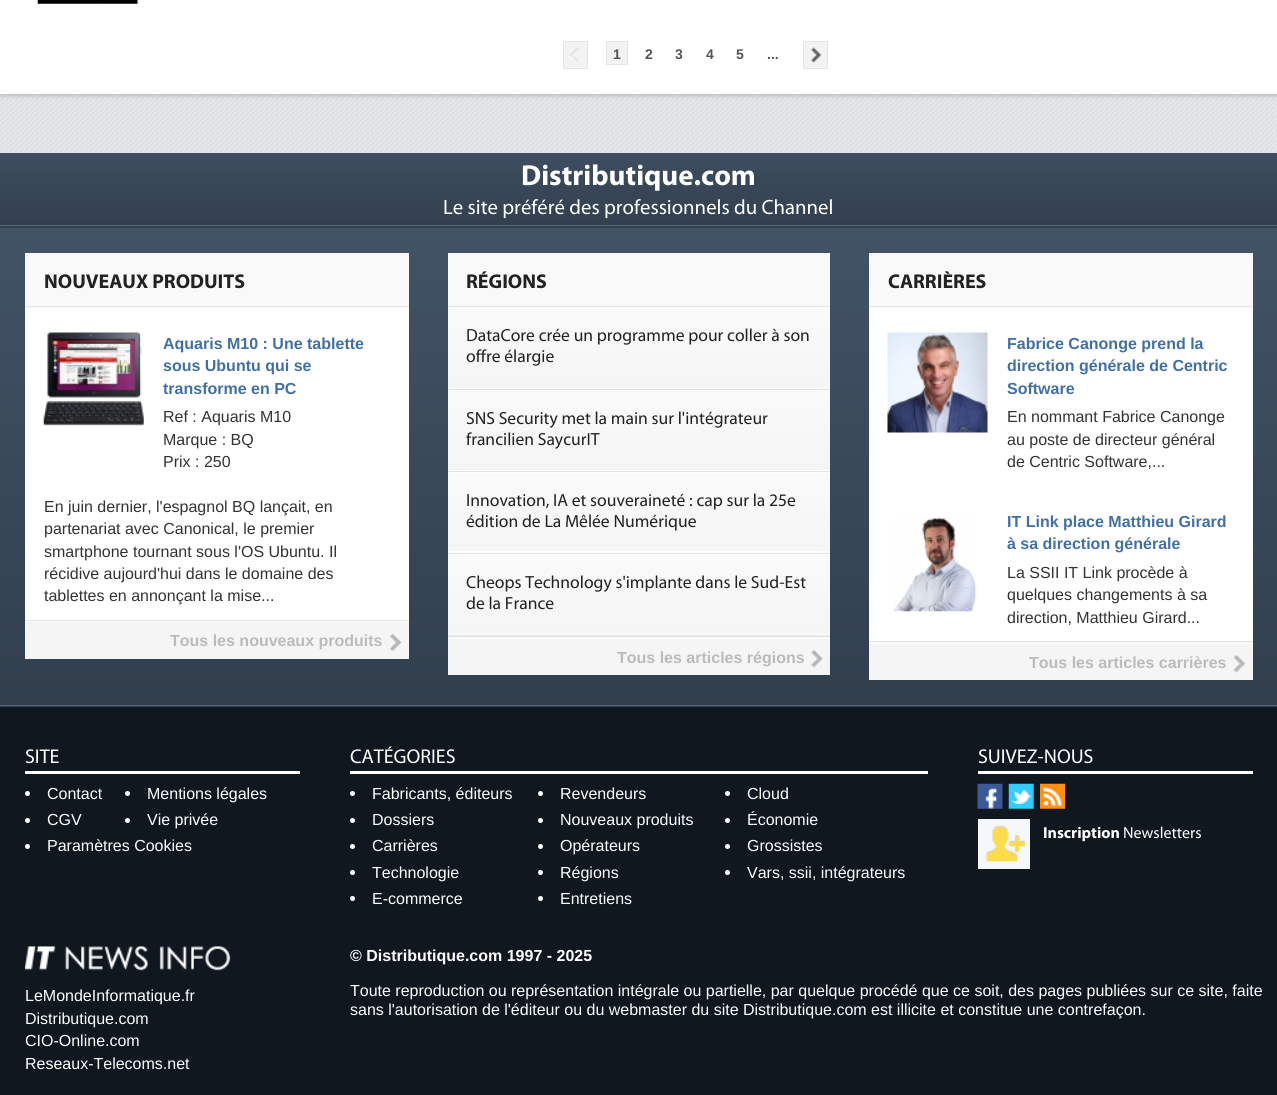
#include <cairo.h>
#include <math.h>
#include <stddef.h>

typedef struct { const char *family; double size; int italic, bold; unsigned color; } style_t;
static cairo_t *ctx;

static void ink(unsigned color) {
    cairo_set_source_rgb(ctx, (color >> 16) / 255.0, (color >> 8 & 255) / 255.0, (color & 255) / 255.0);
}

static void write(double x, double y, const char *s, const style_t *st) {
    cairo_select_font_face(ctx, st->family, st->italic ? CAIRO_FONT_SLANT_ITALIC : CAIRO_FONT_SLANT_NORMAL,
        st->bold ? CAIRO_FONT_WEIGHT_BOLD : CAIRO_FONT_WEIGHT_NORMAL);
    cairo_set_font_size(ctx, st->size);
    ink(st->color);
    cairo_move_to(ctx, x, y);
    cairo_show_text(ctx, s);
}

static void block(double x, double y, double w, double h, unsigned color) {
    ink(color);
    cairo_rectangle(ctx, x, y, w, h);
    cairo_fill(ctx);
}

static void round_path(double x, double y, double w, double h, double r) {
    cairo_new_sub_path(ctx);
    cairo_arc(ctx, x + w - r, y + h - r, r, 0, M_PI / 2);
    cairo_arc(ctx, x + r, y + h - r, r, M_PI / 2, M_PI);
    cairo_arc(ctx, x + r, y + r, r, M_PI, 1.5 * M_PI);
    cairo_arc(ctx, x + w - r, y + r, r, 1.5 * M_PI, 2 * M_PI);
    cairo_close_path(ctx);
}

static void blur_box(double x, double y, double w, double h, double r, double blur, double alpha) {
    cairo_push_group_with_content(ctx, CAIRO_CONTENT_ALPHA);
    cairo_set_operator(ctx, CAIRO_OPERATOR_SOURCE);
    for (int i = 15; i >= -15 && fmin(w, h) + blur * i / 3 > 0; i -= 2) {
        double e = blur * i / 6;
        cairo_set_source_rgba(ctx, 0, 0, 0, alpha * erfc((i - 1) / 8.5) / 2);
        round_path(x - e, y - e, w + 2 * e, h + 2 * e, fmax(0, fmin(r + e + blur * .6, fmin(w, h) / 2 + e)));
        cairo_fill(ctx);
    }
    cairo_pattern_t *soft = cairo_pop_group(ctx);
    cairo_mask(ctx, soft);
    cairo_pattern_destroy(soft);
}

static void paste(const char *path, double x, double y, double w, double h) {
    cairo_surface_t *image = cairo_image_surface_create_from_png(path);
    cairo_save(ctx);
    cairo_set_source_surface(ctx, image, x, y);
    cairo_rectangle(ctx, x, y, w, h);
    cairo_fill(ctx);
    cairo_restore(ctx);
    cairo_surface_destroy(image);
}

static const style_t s1 = {"Liberation Sans", 14, 0, 1, 0x555555};
static const style_t s2 = {"Myriad", 29, 0, 1, 0xffffff};
static const style_t s3 = {"Myriad", 20.75, 0, 0, 0xffffff};
static const style_t s4 = {"Myriad", 20, 0, 1, 0x222222};
static const style_t s5 = {"Liberation Sans", 16, 0, 1, 0x4170a5};
static const style_t s6 = {"Liberation Sans", 16, 0, 0, 0x333333};
static const style_t s7 = {"Liberation Sans", 16, 0, 1, 0xbbbbbb};
static const style_t s8 = {"Myriad", 17.6, 0, 0, 0x222222};
static const style_t s9 = {"Myriad", 20, 0, 0, 0xffffff};
static const style_t s10 = {"Liberation Sans", 16, 0, 0, 0xffffff};
static const style_t s11 = {"Myriad", 16, 0, 1, 0xffffff};
static const style_t s12 = {"Myriad", 16, 0, 0, 0xffffff};
static const style_t s13 = {"Liberation Sans", 16, 0, 1, 0xffffff};

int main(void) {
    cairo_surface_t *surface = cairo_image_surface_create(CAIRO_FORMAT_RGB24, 1277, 1095);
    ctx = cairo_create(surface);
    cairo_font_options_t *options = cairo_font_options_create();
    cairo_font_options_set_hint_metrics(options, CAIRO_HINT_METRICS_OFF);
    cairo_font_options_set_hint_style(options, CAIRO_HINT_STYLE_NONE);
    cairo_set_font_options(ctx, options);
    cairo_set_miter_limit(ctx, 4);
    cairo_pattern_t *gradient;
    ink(0xffffff);
    cairo_paint(ctx);
    paste("pic1.png", 0, 94, 1277, 59);
    ink(0xbbbbbb);
    blur_box(0, -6, 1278, 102, 0, 2, 1);
    block(0, 0, 1277, 94, 0xffffff);
    paste("pic2.png", 37, 0, 101, 4);
    block(564, 42, 23, 26, 0xf3f3f3);
    paste("pic3.png", 569, 47, 10, 14);
    cairo_rectangle(ctx, 563.5, 41.5, 24, 27);
    ink(0xe5e5e5);
    cairo_set_line_width(ctx, 1);
    cairo_stroke(ctx);
    ink(0xf3f3f3);
    cairo_rectangle(ctx, 606.5, 41.5, 21, 23);
    cairo_fill_preserve(ctx);
    ink(0xe5e5e5);
    cairo_stroke(ctx);
    write(613, 59, "1", &s1);
    write(645, 59, "2", &s1);
    write(675, 59, "3", &s1);
    write(706, 59, "4", &s1);
    write(736, 59, "5", &s1);
    write(767, 59, "...", &s1);
    block(804, 42, 23, 26, 0xf3f3f3);
    paste("pic4.png", 811, 47, 11, 16);
    cairo_rectangle(ctx, 803.5, 41.5, 24, 27);
    ink(0xe5e5e5);
    cairo_stroke(ctx);
    gradient = cairo_pattern_create_linear(639, 152, 639, 225);
    cairo_pattern_add_color_stop_rgba(gradient, 0, 0.243, 0.306, 0.376, 1);
    cairo_pattern_add_color_stop_rgba(gradient, 1, 0.196, 0.247, 0.306, 1);
    cairo_set_source(ctx, gradient);
    cairo_pattern_destroy(gradient);
    cairo_rectangle(ctx, 0, 153, 1277, 72);
    cairo_fill(ctx);
    block(0, 225, 1277, 1, 0x59687b);
    write(521, 185, "Distributique.com", &s2);
    write(443, 214, "Le site préféré des professionnels du Channel", &s3);
    gradient = cairo_pattern_create_linear(639, -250, 639, 228);
    cairo_pattern_add_color_stop_rgba(gradient, 0, 0.259, 0.325, 0.4, 1);
    cairo_pattern_add_color_stop_rgba(gradient, 1, 0.192, 0.247, 0.302, 1);
    cairo_set_source(ctx, gradient);
    cairo_pattern_destroy(gradient);
    cairo_rectangle(ctx, 0, 226, 1277, 2);
    cairo_fill(ctx);
    gradient = cairo_pattern_create_linear(639, 227, 639, 705);
    cairo_pattern_add_color_stop_rgba(gradient, 0, 0.259, 0.325, 0.4, 1);
    cairo_pattern_add_color_stop_rgba(gradient, 1, 0.192, 0.247, 0.302, 1);
    cairo_set_source(ctx, gradient);
    cairo_pattern_destroy(gradient);
    cairo_rectangle(ctx, 0, 228, 1277, 477);
    cairo_fill(ctx);
    block(0, 705, 1277, 1, 0x59687b);
    block(25, 253, 384, 55, 0xf9f9f9);
    block(25, 306, 384, 1, 0xe5e5e5);
    write(44, 288, "NOUVEAUX PRODUITS", &s4);
    block(25, 308, 384, 312, 0xffffff);
    paste("pic5.png", 43, 332, 101, 94);
    write(163, 349, "Aquaris M10 : Une tablette", &s5);
    write(163, 371, "sous Ubuntu qui se", &s5);
    write(163, 394, "transforme en PC", &s5);
    write(163, 422, "Ref : Aquaris M10", &s6);
    write(163, 445, "Marque : BQ", &s6);
    write(163, 467, "Prix : 250", &s6);
    write(44, 512, "En juin dernier, l'espagnol BQ lançait, en", &s6);
    write(44, 534, "partenariat avec Canonical, le premier", &s6);
    write(44, 557, "smartphone tournant sous l'OS Ubuntu. Il", &s6);
    write(44, 579, "récidive aujourd'hui dans le domaine des", &s6);
    write(44, 601, "tablettes en annonçant la mise...", &s6);
    block(25, 622, 384, 37, 0xf5f5f5);
    block(25, 620, 384, 1, 0xe5e5e5);
    block(25, 621, 384, 1, 0xffffff);
    paste("pic6.png", 390, 633, 12, 19);
    write(170, 646, "Tous les nouveaux produits", &s7);
    block(448, 253, 382, 55, 0xf9f9f9);
    block(448, 306, 382, 1, 0xe5e5e5);
    write(466, 288, "RÉGIONS", &s4);
    block(448, 472, 382, 1, 0xffffff);
    block(448, 389, 382, 1, 0xe5e5e5);
    gradient = cairo_pattern_create_linear(639, 307, 639, 388);
    cairo_pattern_add_color_stop_rgba(gradient, 0, 0.98, 0.98, 0.98, 1);
    cairo_pattern_add_color_stop_rgba(gradient, 1, 0.961, 0.961, 0.961, 1);
    cairo_set_source(ctx, gradient);
    cairo_pattern_destroy(gradient);
    cairo_rectangle(ctx, 448, 308, 382, 80);
    cairo_fill(ctx);
    block(448, 388, 382, 1, 0xffffff);
    write(466, 341, "DataCore crée un programme pour coller à son", &s8);
    write(466, 362, "offre élargie", &s8);
    block(448, 471, 382, 1, 0xe5e5e5);
    gradient = cairo_pattern_create_linear(639, 390, 639, 470);
    cairo_pattern_add_color_stop_rgba(gradient, 0, 0.98, 0.98, 0.98, 1);
    cairo_pattern_add_color_stop_rgba(gradient, 1, 0.961, 0.961, 0.961, 1);
    cairo_set_source(ctx, gradient);
    cairo_pattern_destroy(gradient);
    cairo_rectangle(ctx, 448, 390, 382, 80);
    cairo_fill(ctx);
    block(448, 470, 382, 1, 0xffffff);
    write(466, 424, "SNS Security met la main sur l'intégrateur", &s8);
    write(466, 445, "francilien SaycurIT", &s8);
    block(448, 553, 382, 1, 0xe5e5e5);
    gradient = cairo_pattern_create_linear(639, 473, 639, 551);
    cairo_pattern_add_color_stop_rgba(gradient, 0, 0.98, 0.98, 0.98, 1);
    cairo_pattern_add_color_stop_rgba(gradient, 1, 0.961, 0.961, 0.961, 1);
    cairo_set_source(ctx, gradient);
    cairo_pattern_destroy(gradient);
    cairo_rectangle(ctx, 448, 473, 382, 78);
    cairo_fill(ctx);
    gradient = cairo_pattern_create_linear(639, 551, 639, 630);
    cairo_pattern_add_color_stop_rgba(gradient, 0, 0.98, 0.98, 0.98, 1);
    cairo_pattern_add_color_stop_rgba(gradient, 1, 0.961, 0.961, 0.961, 1);
    cairo_set_source(ctx, gradient);
    cairo_pattern_destroy(gradient);
    cairo_rectangle(ctx, 448, 552, 382, 1);
    cairo_fill(ctx);
    block(448, 551, 382, 1, 0xffffff);
    write(466, 506, "Innovation, IA et souveraineté : cap sur la 25e", &s8);
    write(466, 527, "édition de La Mêlée Numérique", &s8);
    block(448, 635, 382, 2, 0xe5e5e5);
    gradient = cairo_pattern_create_linear(639, 554, 639, 634);
    cairo_pattern_add_color_stop_rgba(gradient, 0, 0.98, 0.98, 0.98, 1);
    cairo_pattern_add_color_stop_rgba(gradient, 1, 0.961, 0.961, 0.961, 1);
    cairo_set_source(ctx, gradient);
    cairo_pattern_destroy(gradient);
    cairo_rectangle(ctx, 448, 554, 382, 80);
    cairo_fill(ctx);
    block(448, 634, 382, 1, 0xffffff);
    write(466, 588, "Cheops Technology s'implante dans le Sud-Est", &s8);
    write(466, 609, "de la France", &s8);
    block(448, 637, 382, 38, 0xf5f5f5);
    block(448, 638, 382, 1, 0xffffff);
    paste("pic7.png", 811, 650, 12, 18);
    write(617, 663, "Tous les articles régions", &s7);
    block(869, 253, 384, 55, 0xf9f9f9);
    block(869, 306, 384, 1, 0xe5e5e5);
    write(888, 288, "CARRIÈRES", &s4);
    block(869, 308, 384, 333, 0xffffff);
    paste("pic8.png", 887, 332, 101, 101);
    write(1007, 349, "Fabrice Canonge prend la", &s5);
    write(1007, 371, "direction générale de Centric", &s5);
    write(1007, 394, "Software", &s5);
    write(1007, 422, "En nommant Fabrice Canonge", &s6);
    write(1007, 445, "au poste de directeur général", &s6);
    write(1007, 467, "de Centric Software,...", &s6);
    paste("pic9.png", 893, 517, 84, 95);
    write(1007, 527, "IT Link place Matthieu Girard", &s5);
    write(1007, 549, "à sa direction générale", &s5);
    write(1007, 578, "La SSII IT Link procède à", &s6);
    write(1007, 600, "quelques changements à sa", &s6);
    write(1007, 623, "direction, Matthieu Girard...", &s6);
    block(869, 642, 384, 38, 0xf5f5f5);
    block(869, 641, 384, 1, 0xe5e5e5);
    block(869, 643, 384, 1, 0xffffff);
    paste("pic10.png", 1233, 655, 13, 18);
    write(1029, 668, "Tous les articles carrières", &s7);
    block(0, 707, 1277, 388, 0x10171f);
    block(0, 706, 1277, 1, 0x313e4d);
    block(25, 771, 275, 3, 0xffffff);
    write(25, 763, "SITE", &s9);
    cairo_new_path(ctx);
    cairo_arc(ctx, 27.5, 793.5, 2.5, 0, 2 * M_PI);
    cairo_fill(ctx);
    write(47, 799, "Contact", &s10);
    cairo_new_path(ctx);
    cairo_arc(ctx, 127.5, 793.5, 2.5, 0, 2 * M_PI);
    cairo_fill(ctx);
    write(147, 799, "Mentions légales", &s10);
    cairo_new_path(ctx);
    cairo_arc(ctx, 27.5, 820.5, 2.5, 0, 2 * M_PI);
    cairo_fill(ctx);
    write(47, 825, "CGV", &s10);
    cairo_new_path(ctx);
    cairo_arc(ctx, 127.5, 820.5, 2.5, 0, 2 * M_PI);
    cairo_fill(ctx);
    write(147, 825, "Vie privée", &s10);
    cairo_new_path(ctx);
    cairo_arc(ctx, 27.5, 846.5, 2.5, 0, 2 * M_PI);
    cairo_fill(ctx);
    write(47, 851, "Paramètres Cookies", &s10);
    block(350, 771, 578, 3, 0xffffff);
    write(350, 763, "CATÉGORIES", &s9);
    cairo_new_path(ctx);
    cairo_arc(ctx, 352.5, 793.5, 2.5, 0, 2 * M_PI);
    cairo_fill(ctx);
    write(372, 799, "Fabricants, éditeurs", &s10);
    cairo_new_path(ctx);
    cairo_arc(ctx, 540.5, 793.5, 2.5, 0, 2 * M_PI);
    cairo_fill(ctx);
    write(560, 799, "Revendeurs", &s10);
    cairo_new_path(ctx);
    cairo_arc(ctx, 727.5, 793.5, 2.5, 0, 2 * M_PI);
    cairo_fill(ctx);
    write(747, 799, "Cloud", &s10);
    cairo_new_path(ctx);
    cairo_arc(ctx, 352.5, 820.5, 2.5, 0, 2 * M_PI);
    cairo_fill(ctx);
    write(372, 825, "Dossiers", &s10);
    cairo_new_path(ctx);
    cairo_arc(ctx, 540.5, 820.5, 2.5, 0, 2 * M_PI);
    cairo_fill(ctx);
    write(560, 825, "Nouveaux produits", &s10);
    cairo_new_path(ctx);
    cairo_arc(ctx, 727.5, 820.5, 2.5, 0, 2 * M_PI);
    cairo_fill(ctx);
    write(747, 825, "Économie", &s10);
    cairo_new_path(ctx);
    cairo_arc(ctx, 352.5, 846.5, 2.5, 0, 2 * M_PI);
    cairo_fill(ctx);
    write(372, 851, "Carrières", &s10);
    cairo_new_path(ctx);
    cairo_arc(ctx, 540.5, 846.5, 2.5, 0, 2 * M_PI);
    cairo_fill(ctx);
    write(560, 851, "Opérateurs", &s10);
    cairo_new_path(ctx);
    cairo_arc(ctx, 727.5, 846.5, 2.5, 0, 2 * M_PI);
    cairo_fill(ctx);
    write(747, 851, "Grossistes", &s10);
    cairo_new_path(ctx);
    cairo_arc(ctx, 352.5, 872.5, 2.5, 0, 2 * M_PI);
    cairo_fill(ctx);
    write(372, 878, "Technologie", &s10);
    cairo_new_path(ctx);
    cairo_arc(ctx, 540.5, 872.5, 2.5, 0, 2 * M_PI);
    cairo_fill(ctx);
    write(560, 878, "Régions", &s10);
    cairo_new_path(ctx);
    cairo_arc(ctx, 727.5, 872.5, 2.5, 0, 2 * M_PI);
    cairo_fill(ctx);
    write(747, 878, "Vars, ssii, intégrateurs", &s10);
    cairo_new_path(ctx);
    cairo_arc(ctx, 352.5, 898.5, 2.5, 0, 2 * M_PI);
    cairo_fill(ctx);
    write(372, 904, "E-commerce", &s10);
    cairo_new_path(ctx);
    cairo_arc(ctx, 540.5, 898.5, 2.5, 0, 2 * M_PI);
    cairo_fill(ctx);
    write(560, 904, "Entretiens", &s10);
    block(978, 771, 275, 3, 0xffffff);
    write(978, 763, "SUIVEZ-NOUS", &s9);
    paste("pic11.png", 977, 783, 26, 26);
    paste("pic12.png", 1008, 783, 26, 26);
    paste("pic13.png", 1040, 783, 25, 26);
    block(978, 819, 52, 50, 0xf5f7fa);
    paste("pic14.png", 986, 825, 40, 37);
    write(1043, 838, "Inscription", &s11);
    write(1123, 838, "Newsletters", &s12);
    paste("pic15.png", 25, 946, 206, 25);
    write(25, 1001, "LeMondeInformatique.fr", &s10);
    write(25, 1024, "Distributique.com", &s10);
    write(25, 1046, "CIO-Online.com", &s10);
    write(25, 1069, "Reseaux-Telecoms.net", &s10);
    write(350, 961, "© Distributique.com 1997 - 2025", &s13);
    write(350, 996, "Toute reproduction ou représentation intégrale ou partielle, par quelque procédé que ce soit, des pages publiées sur ce site, faite", &s10);
    write(350, 1015, "sans l'autorisation de l'éditeur ou du webmaster du site Distributique.com est illicite et constitue une contrefaçon.", &s10);
    cairo_surface_write_to_png(surface, "screenshot.png");
    cairo_font_options_destroy(options);
    cairo_destroy(ctx);
    cairo_surface_destroy(surface);
    return 0;
}
